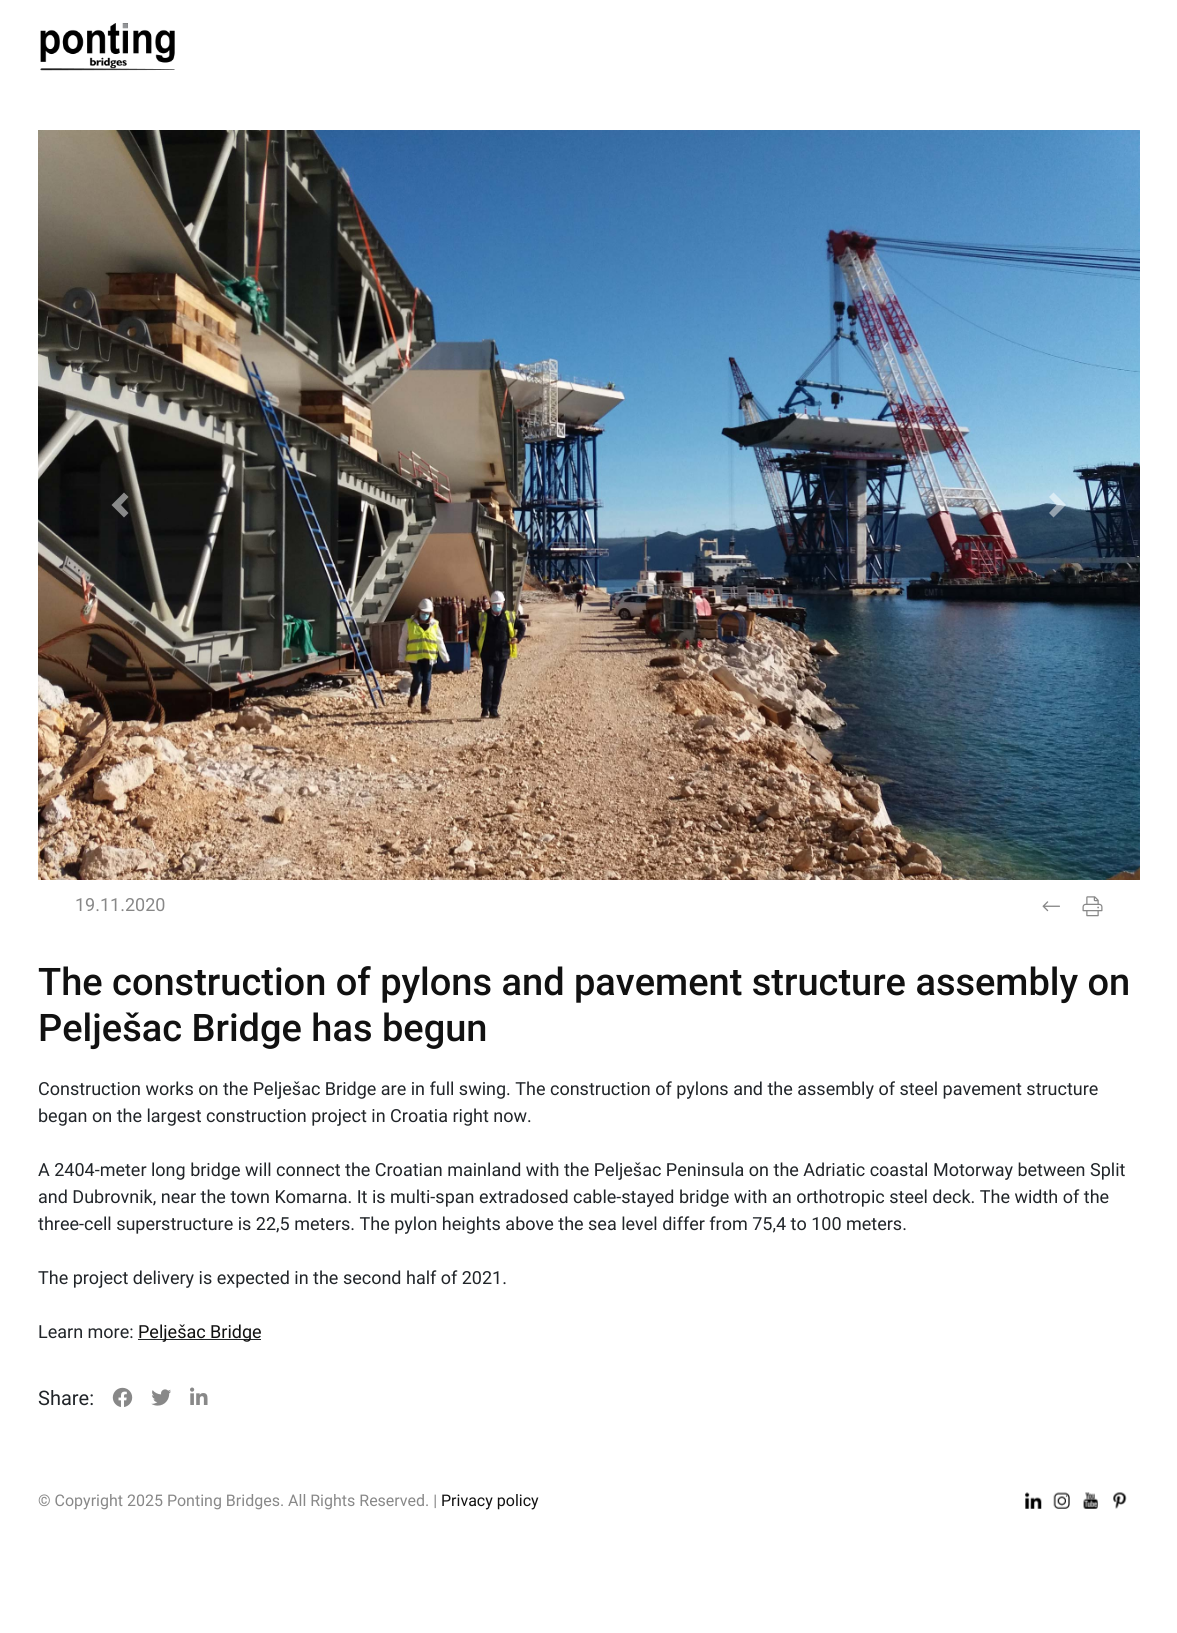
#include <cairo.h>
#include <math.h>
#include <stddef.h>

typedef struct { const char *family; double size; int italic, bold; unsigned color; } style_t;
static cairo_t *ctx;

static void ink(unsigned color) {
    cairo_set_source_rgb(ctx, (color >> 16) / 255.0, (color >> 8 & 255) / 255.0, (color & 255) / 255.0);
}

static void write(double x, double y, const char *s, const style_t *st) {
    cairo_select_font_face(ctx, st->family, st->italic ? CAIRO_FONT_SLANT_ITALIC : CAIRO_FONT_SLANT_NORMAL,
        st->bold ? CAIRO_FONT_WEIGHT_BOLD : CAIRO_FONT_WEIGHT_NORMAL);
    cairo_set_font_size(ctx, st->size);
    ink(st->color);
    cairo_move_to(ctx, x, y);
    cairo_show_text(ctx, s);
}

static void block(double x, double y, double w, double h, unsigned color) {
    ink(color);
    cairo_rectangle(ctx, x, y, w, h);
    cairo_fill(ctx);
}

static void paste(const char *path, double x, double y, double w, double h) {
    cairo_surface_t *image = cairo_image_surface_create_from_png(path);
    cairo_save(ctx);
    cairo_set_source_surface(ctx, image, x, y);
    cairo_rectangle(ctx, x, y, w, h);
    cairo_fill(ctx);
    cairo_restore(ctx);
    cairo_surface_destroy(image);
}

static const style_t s1 = {"Roboto", 18, 0, 0, 0x888888};
static const style_t s2 = {"Roboto Medium", 38, 0, 0, 0x111111};
static const style_t s3 = {"Roboto", 18, 0, 0, 0x212529};
static const style_t s4 = {"Roboto", 18, 0, 0, 0x111111};
static const style_t s5 = {"Roboto", 20, 0, 0, 0x212529};
static const style_t s6 = {"Roboto", 16, 0, 0, 0x888888};
static const style_t s7 = {"Roboto", 16, 0, 0, 0x111111};

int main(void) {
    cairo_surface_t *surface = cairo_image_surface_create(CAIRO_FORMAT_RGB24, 1177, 1633);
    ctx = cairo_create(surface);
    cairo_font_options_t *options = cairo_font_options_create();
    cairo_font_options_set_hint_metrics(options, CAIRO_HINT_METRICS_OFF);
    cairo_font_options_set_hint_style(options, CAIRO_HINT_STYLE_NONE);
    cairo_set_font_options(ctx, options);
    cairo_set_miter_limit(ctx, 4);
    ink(0xffffff);
    cairo_paint(ctx);
    paste("pic1.png", 40, 23, 135, 48);
    paste("pic2.png", 38, 130, 1102, 750);
    cairo_set_source_rgba(ctx, 1, 1, 1, 0.5);
    cairo_new_path(ctx);
    cairo_move_to(ctx, 124, 492.5);
    cairo_line_to(ctx, 111.5, 505);
    cairo_line_to(ctx, 124, 517.5);
    cairo_line_to(ctx, 128.5, 513);
    cairo_line_to(ctx, 121, 505);
    cairo_line_to(ctx, 128.5, 497);
    cairo_close_path(ctx);
    cairo_fill(ctx);
    cairo_new_path(ctx);
    cairo_move_to(ctx, 1053.5, 492.5);
    cairo_line_to(ctx, 1049, 497);
    cairo_line_to(ctx, 1056.5, 505);
    cairo_line_to(ctx, 1049, 513);
    cairo_line_to(ctx, 1053.5, 517.5);
    cairo_line_to(ctx, 1066, 505);
    cairo_close_path(ctx);
    cairo_fill(ctx);
    write(75, 911, "19.11.2020", &s1);
    paste("pic3.png", 1042, 901, 18, 11);
    paste("pic4.png", 1082, 896, 21, 21);
    write(38, 995, "The construction of pylons and pavement structure assembly on", &s2);
    write(38, 1041, "Pelješac Bridge has begun", &s2);
    write(38, 1095, "Construction works on the Pelješac Bridge are in full swing. The construction of pylons and the assembly of steel pavement structure", &s3);
    write(38, 1122, "began on the largest construction project in Croatia right now.", &s3);
    write(38, 1176, "A 2404-meter long bridge will connect the Croatian mainland with the Pelješac Peninsula on the Adriatic coastal Motorway between Split", &s3);
    write(38, 1203, "and Dubrovnik, near the town Komarna. It is multi-span extradosed cable-stayed bridge with an orthotropic steel deck. The width of the", &s3);
    write(38, 1230, "three-cell superstructure is 22,5 meters. The pylon heights above the sea level differ from 75,4 to 100 meters.", &s3);
    write(38, 1284, "The project delivery is expected in the second half of 2021.", &s3);
    write(38, 1338, "Learn more:", &s3);
    block(138, 1339, 123, 1, 0x212529);
    write(138, 1338, "Pelješac Bridge", &s4);
    write(38, 1405, "Share:", &s5);
    paste("pic5.png", 112, 1387, 21, 20);
    paste("pic6.png", 151, 1389, 20, 17);
    paste("pic7.png", 190, 1387, 18, 18);
    write(38, 1506, "© Copyright 2025 Ponting Bridges. All Rights Reserved. |", &s6);
    write(441, 1506, "Privacy policy", &s7);
    paste("pic8.png", 1025, 1492, 17, 17);
    paste("pic9.png", 1053, 1492, 17, 17);
    paste("pic10.png", 1083, 1492, 16, 17);
    paste("pic11.png", 1113, 1492, 14, 17);
    cairo_surface_write_to_png(surface, "screenshot.png");
    cairo_font_options_destroy(options);
    cairo_destroy(ctx);
    cairo_surface_destroy(surface);
    return 0;
}
